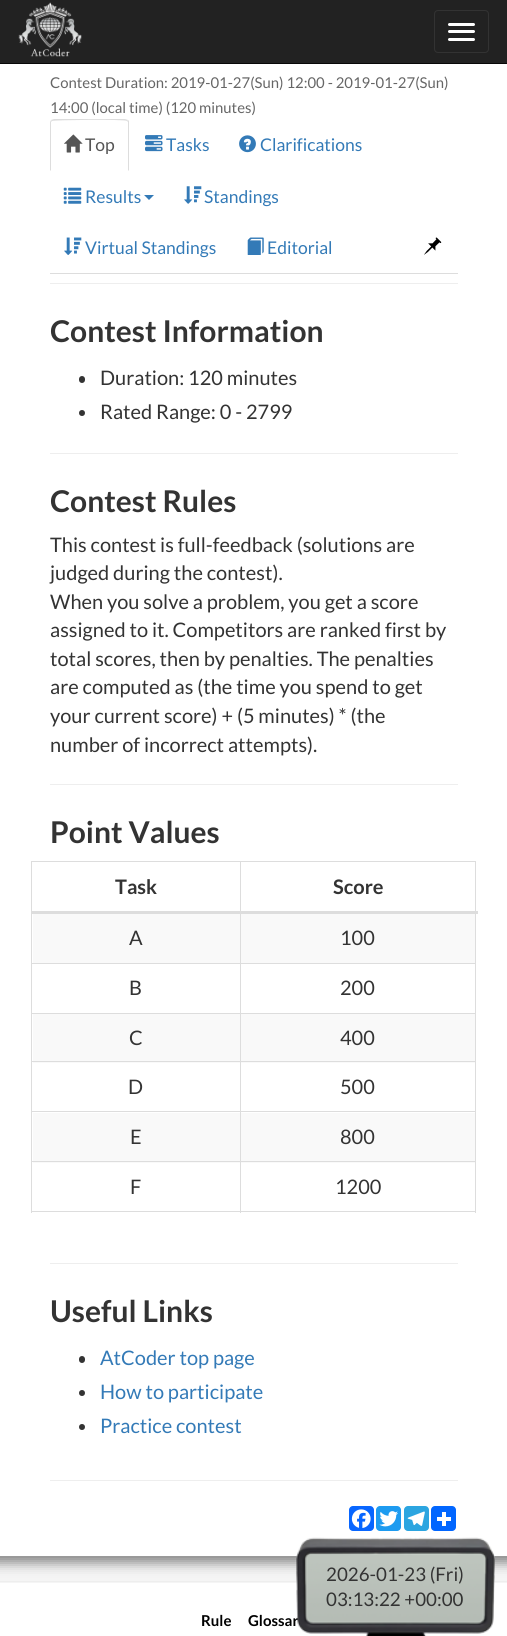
#include <cairo.h>
#include <math.h>
#include <stddef.h>

typedef struct { const char *family; double size; int italic, bold; unsigned color; } style_t;
static cairo_t *ctx;

static void ink(unsigned color) {
    cairo_set_source_rgb(ctx, (color >> 16) / 255.0, (color >> 8 & 255) / 255.0, (color & 255) / 255.0);
}

static void write(double x, double y, const char *s, const style_t *st) {
    cairo_select_font_face(ctx, st->family, st->italic ? CAIRO_FONT_SLANT_ITALIC : CAIRO_FONT_SLANT_NORMAL,
        st->bold ? CAIRO_FONT_WEIGHT_BOLD : CAIRO_FONT_WEIGHT_NORMAL);
    cairo_set_font_size(ctx, st->size);
    ink(st->color);
    cairo_move_to(ctx, x, y);
    cairo_show_text(ctx, s);
}

static void block(double x, double y, double w, double h, unsigned color) {
    ink(color);
    cairo_rectangle(ctx, x, y, w, h);
    cairo_fill(ctx);
}

static void round_path(double x, double y, double w, double h, double r) {
    cairo_new_sub_path(ctx);
    cairo_arc(ctx, x + w - r, y + h - r, r, 0, M_PI / 2);
    cairo_arc(ctx, x + r, y + h - r, r, M_PI / 2, M_PI);
    cairo_arc(ctx, x + r, y + r, r, M_PI, 1.5 * M_PI);
    cairo_arc(ctx, x + w - r, y + r, r, 1.5 * M_PI, 2 * M_PI);
    cairo_close_path(ctx);
}

static void blur_box(double x, double y, double w, double h, double r, double blur, double alpha) {
    cairo_push_group_with_content(ctx, CAIRO_CONTENT_ALPHA);
    cairo_set_operator(ctx, CAIRO_OPERATOR_SOURCE);
    for (int i = 15; i >= -15 && fmin(w, h) + blur * i / 3 > 0; i -= 2) {
        double e = blur * i / 6;
        cairo_set_source_rgba(ctx, 0, 0, 0, alpha * erfc((i - 1) / 8.5) / 2);
        round_path(x - e, y - e, w + 2 * e, h + 2 * e, fmax(0, fmin(r + e + blur * .6, fmin(w, h) / 2 + e)));
        cairo_fill(ctx);
    }
    cairo_pattern_t *soft = cairo_pop_group(ctx);
    cairo_mask(ctx, soft);
    cairo_pattern_destroy(soft);
}

static void paste(const char *path, double x, double y, double w, double h) {
    cairo_surface_t *image = cairo_image_surface_create_from_png(path);
    cairo_save(ctx);
    cairo_set_source_surface(ctx, image, x, y);
    cairo_rectangle(ctx, x, y, w, h);
    cairo_fill(ctx);
    cairo_restore(ctx);
    cairo_surface_destroy(image);
}

static const style_t s1 = {"Lato", 14.9, 0, 0, 0x666666};
static const style_t s2 = {"Lato", 17.5, 0, 0, 0x555555};
static const style_t s3 = {"Lato", 17.5, 0, 0, 0x337ab7};
static const style_t s4 = {"Lato", 30, 0, 1, 0x333333};
static const style_t s5 = {"Lato", 20, 0, 0, 0x333333};
static const style_t s6 = {"Lato", 20, 0, 1, 0x333333};
static const style_t s7 = {"Lato", 20, 0, 0, 0x337ab7};
static const style_t s8 = {"Lato", 15, 0, 1, 0x000000};
static const style_t s9 = {"Lato", 18.75, 0, 0, 0x333333};

int main(void) {
    cairo_surface_t *surface = cairo_image_surface_create(CAIRO_FORMAT_RGB24, 507, 1636);
    ctx = cairo_create(surface);
    cairo_font_options_t *options = cairo_font_options_create();
    cairo_font_options_set_hint_metrics(options, CAIRO_HINT_METRICS_OFF);
    cairo_font_options_set_hint_style(options, CAIRO_HINT_STYLE_NONE);
    cairo_set_font_options(ctx, options);
    cairo_set_miter_limit(ctx, 4);
    ink(0xffffff);
    cairo_paint(ctx);
    block(0, 1556, 507, 27, 0xf5f5f5);
    ink(0x888888);
    blur_box(-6, -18, 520, 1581, 0, 6, 1);
    block(0, 0, 507, 63, 0x222222);
    block(0, 63, 507, 1, 0x080808);
    paste("pic1.png", 18, 2, 64, 55);
    round_path(434.5, 10.5, 54, 42, 3.5);
    ink(0x333333);
    cairo_set_line_width(ctx, 1);
    cairo_stroke(ctx);
    ink(0xffffff);
    round_path(448, 23, 27, 3, 1.5);
    cairo_fill(ctx);
    round_path(448, 30, 27, 3, 1.5);
    cairo_fill(ctx);
    round_path(448, 38, 27, 3, 1.5);
    cairo_fill(ctx);
    block(0, 64, 507, 1492, 0xffffff);
    write(50, 88, "Contest Duration: 2019-01-27(Sun) 12:00 - 2019-01-27(Sun)", &s1);
    write(50, 113, "14:00 (local time) (120 minutes)", &s1);
    block(50, 273, 408, 1, 0xdddddd);
    cairo_new_path(ctx);
    cairo_move_to(ctx, 54, 119);
    cairo_line_to(ctx, 51, 120);
    cairo_line_to(ctx, 52, 121);
    cairo_curve_to(ctx, 53, 120, 125, 119, 127, 121);
    cairo_line_to(ctx, 128, 120);
    cairo_line_to(ctx, 125, 119);
    cairo_close_path(ctx);
    cairo_fill(ctx);
    cairo_new_path(ctx);
    cairo_move_to(ctx, 128, 120);
    cairo_line_to(ctx, 129, 121);
    cairo_line_to(ctx, 129, 171);
    cairo_line_to(ctx, 128, 170);
    cairo_line_to(ctx, 128, 122);
    cairo_line_to(ctx, 127, 121);
    cairo_close_path(ctx);
    cairo_fill(ctx);
    cairo_new_path(ctx);
    cairo_move_to(ctx, 50, 122);
    cairo_line_to(ctx, 50, 171);
    cairo_line_to(ctx, 51, 170);
    cairo_line_to(ctx, 51, 122);
    cairo_line_to(ctx, 52, 121);
    cairo_line_to(ctx, 51, 120);
    cairo_close_path(ctx);
    cairo_fill(ctx);
    paste("pic2.png", 64, 134, 19, 19);
    write(85, 151, "Top", &s2);
    paste("pic3.png", 145, 135, 18, 17);
    write(166, 151, "Tasks", &s3);
    paste("pic4.png", 239, 135, 17, 18);
    write(260, 151, "Clarifications", &s3);
    paste("pic5.png", 63, 187, 19, 17);
    write(85, 203, "Results", &s3);
    cairo_new_path(ctx);
    cairo_move_to(ctx, 144, 195);
    cairo_line_to(ctx, 154, 195);
    cairo_line_to(ctx, 149, 200);
    cairo_close_path(ctx);
    cairo_fill(ctx);
    paste("pic6.png", 184, 186, 18, 18);
    write(204, 203, "Standings", &s3);
    paste("pic7.png", 64, 237, 18, 18);
    write(85, 254, "Virtual Standings", &s3);
    paste("pic8.png", 247, 237, 17, 18);
    write(267, 254, "Editorial", &s3);
    paste("pic9.png", 424, 237, 18, 18);
    block(50, 283, 408, 1, 0xeeeeee);
    write(50, 342, "Contest Information", &s4);
    round_path(79, 376, 6, 7, 3);
    cairo_fill(ctx);
    write(100, 385, "Duration: 120 minutes", &s5);
    cairo_new_path(ctx);
    cairo_arc(ctx, 82, 413, 3, 0, 2 * M_PI);
    cairo_fill(ctx);
    write(100, 419, "Rated Range: 0 - 2799", &s5);
    block(50, 453, 408, 1, 0xeeeeee);
    write(50, 512, "Contest Rules", &s4);
    write(50, 552, "This contest is full-feedback (solutions are", &s5);
    write(50, 580, "judged during the contest).", &s5);
    write(50, 609, "When you solve a problem, you get a score", &s5);
    write(50, 637, "assigned to it. Competitors are ranked first by", &s5);
    write(50, 666, "total scores, then by penalties. The penalties", &s5);
    write(50, 694, "are computed as (the time you spend to get", &s5);
    write(50, 723, "your current score) + (5 minutes) * (the", &s5);
    write(50, 752, "number of incorrect attempts).", &s5);
    block(50, 784, 408, 1, 0xeeeeee);
    write(50, 843, "Point Values", &s4);
    block(31, 861, 445, 1, 0xdddddd);
    block(475, 861, 1, 352, 0xdddddd);
    block(31, 1211, 445, 1, 0xdddddd);
    block(31, 861, 1, 352, 0xdddddd);
    write(115, 894, "Task", &s6);
    block(33, 914, 442, 49, 0xf9f9f9);
    block(240, 963, 236, 1, 0xdddddd);
    block(240, 1013, 236, 1, 0xdddddd);
    block(33, 1014, 442, 49, 0xf9f9f9);
    block(240, 1061, 236, 1, 0xdddddd);
    block(240, 1111, 236, 1, 0xdddddd);
    block(33, 1113, 442, 50, 0xf9f9f9);
    block(240, 1161, 236, 1, 0xdddddd);
    block(240, 1161, 1, 52, 0xdddddd);
    block(31, 1161, 210, 1, 0xdddddd);
    block(240, 1111, 1, 52, 0xdddddd);
    block(31, 1111, 210, 1, 0xdddddd);
    block(240, 1061, 1, 52, 0xdddddd);
    block(31, 1061, 210, 1, 0xdddddd);
    block(240, 1013, 1, 50, 0xdddddd);
    block(31, 1013, 210, 1, 0xdddddd);
    block(240, 963, 1, 51, 0xdddddd);
    block(31, 963, 210, 1, 0xdddddd);
    block(240, 861, 1, 103, 0xdddddd);
    block(31, 911, 447, 3, 0xdddddd);
    write(333, 894, "Score", &s6);
    write(129, 945, "A", &s5);
    write(340, 945, "100", &s5);
    write(129, 995, "B", &s5);
    write(340, 995, "200", &s5);
    write(129, 1045, "C", &s5);
    write(340, 1045, "400", &s5);
    write(128, 1094, "D", &s5);
    write(340, 1094, "500", &s5);
    write(130, 1144, "E", &s5);
    write(340, 1144, "800", &s5);
    write(130, 1194, "F", &s5);
    write(335, 1194, "1200", &s5);
    block(50, 1263, 408, 1, 0xeeeeee);
    write(50, 1322, "Useful Links", &s4);
    round_path(79, 1356, 6, 7, 3);
    cairo_fill(ctx);
    write(100, 1365, "AtCoder top page", &s7);
    ink(0x333333);
    cairo_new_path(ctx);
    cairo_arc(ctx, 82, 1393, 3, 0, 2 * M_PI);
    cairo_fill(ctx);
    write(100, 1399, "How to participate", &s7);
    ink(0x333333);
    cairo_new_path(ctx);
    cairo_arc(ctx, 82, 1427, 3, 0, 2 * M_PI);
    cairo_fill(ctx);
    write(100, 1433, "Practice contest", &s7);
    block(50, 1480, 408, 1, 0xeeeeee);
    ink(0x0866ff);
    round_path(349, 1506, 25, 25, 4);
    cairo_fill(ctx);
    paste("pic10.png", 351, 1509, 20, 19);
    ink(0x1d9bf0);
    round_path(376, 1506, 25, 25, 4);
    cairo_fill(ctx);
    paste("pic11.png", 379, 1511, 19, 16);
    ink(0x2ca5e0);
    round_path(404, 1506, 25, 25, 4);
    cairo_fill(ctx);
    paste("pic12.png", 407, 1511, 18, 15);
    ink(0x0166ff);
    round_path(431, 1506, 25, 25, 4);
    cairo_fill(ctx);
    block(442, 1512, 4, 14, 0xffffff);
    block(437, 1517, 14, 4, 0xffffff);
    block(0, 1581, 507, 1, 0xeeeeee);
    write(248, 1626, "Glossar", &s8);
    paste("pic13.png", 295, 1537, 200, 99);
    write(326, 1581, "2026-01-23 (Fri)", &s9);
    write(326, 1606, "03:13:22 +00:00", &s9);
    write(201, 1626, "Rule", &s8);
    cairo_surface_write_to_png(surface, "screenshot.png");
    cairo_font_options_destroy(options);
    cairo_destroy(ctx);
    cairo_surface_destroy(surface);
    return 0;
}
